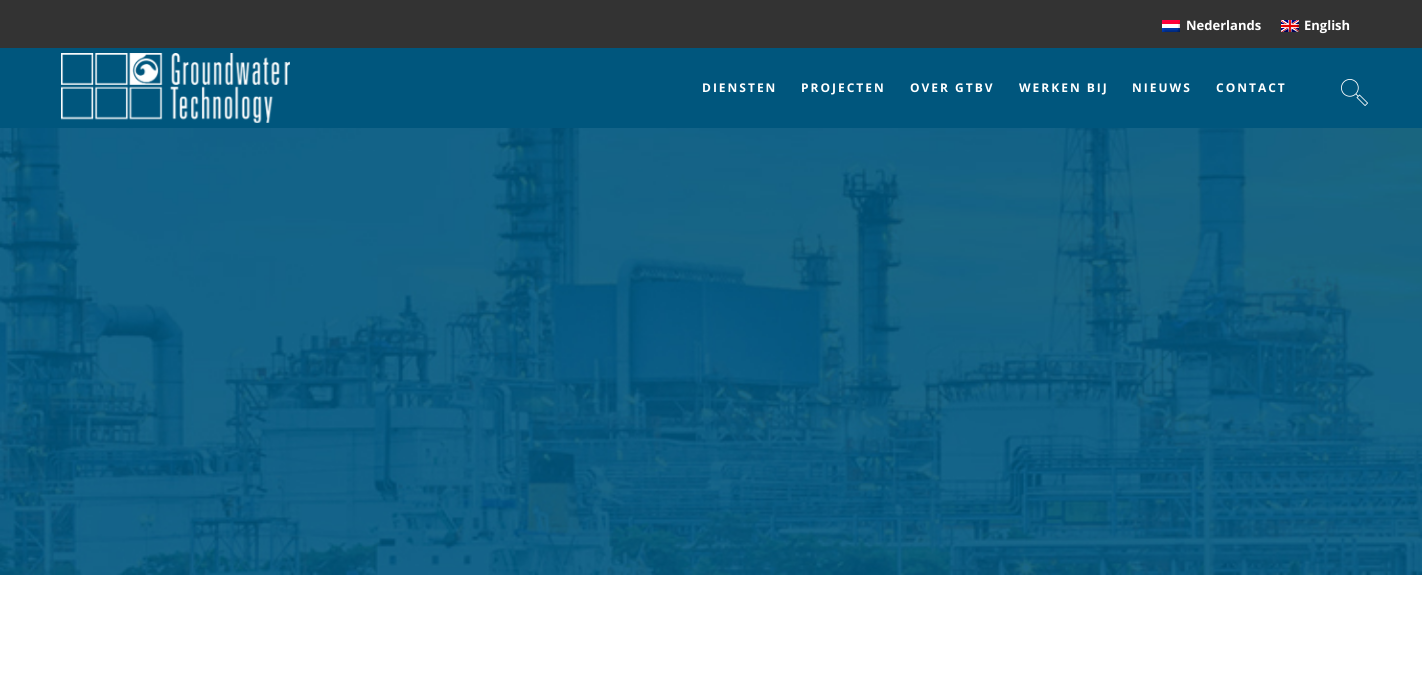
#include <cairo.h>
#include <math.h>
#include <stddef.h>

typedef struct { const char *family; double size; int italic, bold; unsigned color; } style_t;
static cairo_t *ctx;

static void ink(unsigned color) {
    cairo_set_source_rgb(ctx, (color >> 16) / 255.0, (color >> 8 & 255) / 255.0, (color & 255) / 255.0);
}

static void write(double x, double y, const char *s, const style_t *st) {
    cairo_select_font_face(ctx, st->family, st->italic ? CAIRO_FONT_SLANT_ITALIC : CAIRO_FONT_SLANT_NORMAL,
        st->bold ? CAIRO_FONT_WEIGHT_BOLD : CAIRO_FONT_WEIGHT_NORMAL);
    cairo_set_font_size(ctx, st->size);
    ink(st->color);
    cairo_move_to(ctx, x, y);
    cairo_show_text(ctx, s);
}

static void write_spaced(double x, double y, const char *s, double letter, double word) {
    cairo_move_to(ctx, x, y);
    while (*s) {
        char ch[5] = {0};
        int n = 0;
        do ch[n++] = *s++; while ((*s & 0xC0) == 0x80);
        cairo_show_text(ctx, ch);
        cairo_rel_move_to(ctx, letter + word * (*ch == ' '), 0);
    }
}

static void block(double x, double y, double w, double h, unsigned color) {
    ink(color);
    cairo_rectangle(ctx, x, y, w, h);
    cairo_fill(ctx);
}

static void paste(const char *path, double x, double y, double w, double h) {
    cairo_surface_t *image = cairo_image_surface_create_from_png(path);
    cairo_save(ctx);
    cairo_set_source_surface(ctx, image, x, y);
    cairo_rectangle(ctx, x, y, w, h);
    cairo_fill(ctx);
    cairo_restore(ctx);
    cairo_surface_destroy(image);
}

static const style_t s1 = {"Open Sans", 13, 0, 1, 0xffffff};

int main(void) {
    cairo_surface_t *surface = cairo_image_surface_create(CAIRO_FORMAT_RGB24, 1422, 698);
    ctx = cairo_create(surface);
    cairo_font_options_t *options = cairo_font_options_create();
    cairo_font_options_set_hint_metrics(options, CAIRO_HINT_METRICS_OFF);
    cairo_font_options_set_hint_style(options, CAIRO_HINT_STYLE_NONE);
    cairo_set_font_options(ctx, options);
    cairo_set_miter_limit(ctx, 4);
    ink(0xffffff);
    cairo_paint(ctx);
    block(0, 0, 1422, 48, 0x333333);
    paste("pic1.png", 1162, 20, 18, 12);
    write(1186, 30, "Nederlands", &s1);
    paste("pic2.png", 1281, 20, 18, 12);
    write(1304, 30, "English", &s1);
    block(0, 48, 1422, 80, 0x00567d);
    paste("pic3.png", 61, 53, 229, 70);
    cairo_set_font_size(ctx, 12);
    ink(0xffffff);
    write_spaced(702, 92, "DIENSTEN", 2, 0);
    write_spaced(801, 92, "PROJECTEN", 2, 0);
    write_spaced(910, 92, "OVER GTBV", 2, 0);
    write_spaced(1019, 92, "WERKEN BIJ", 2, 0);
    write_spaced(1132, 92, "NIEUWS", 2, 0);
    write_spaced(1216, 92, "CONTACT", 2, 0);
    paste("pic4.png", 1341, 79, 27, 27);
    paste("pic5.png", 0, 128, 1422, 447);
    cairo_surface_write_to_png(surface, "screenshot.png");
    cairo_font_options_destroy(options);
    cairo_destroy(ctx);
    cairo_surface_destroy(surface);
    return 0;
}
